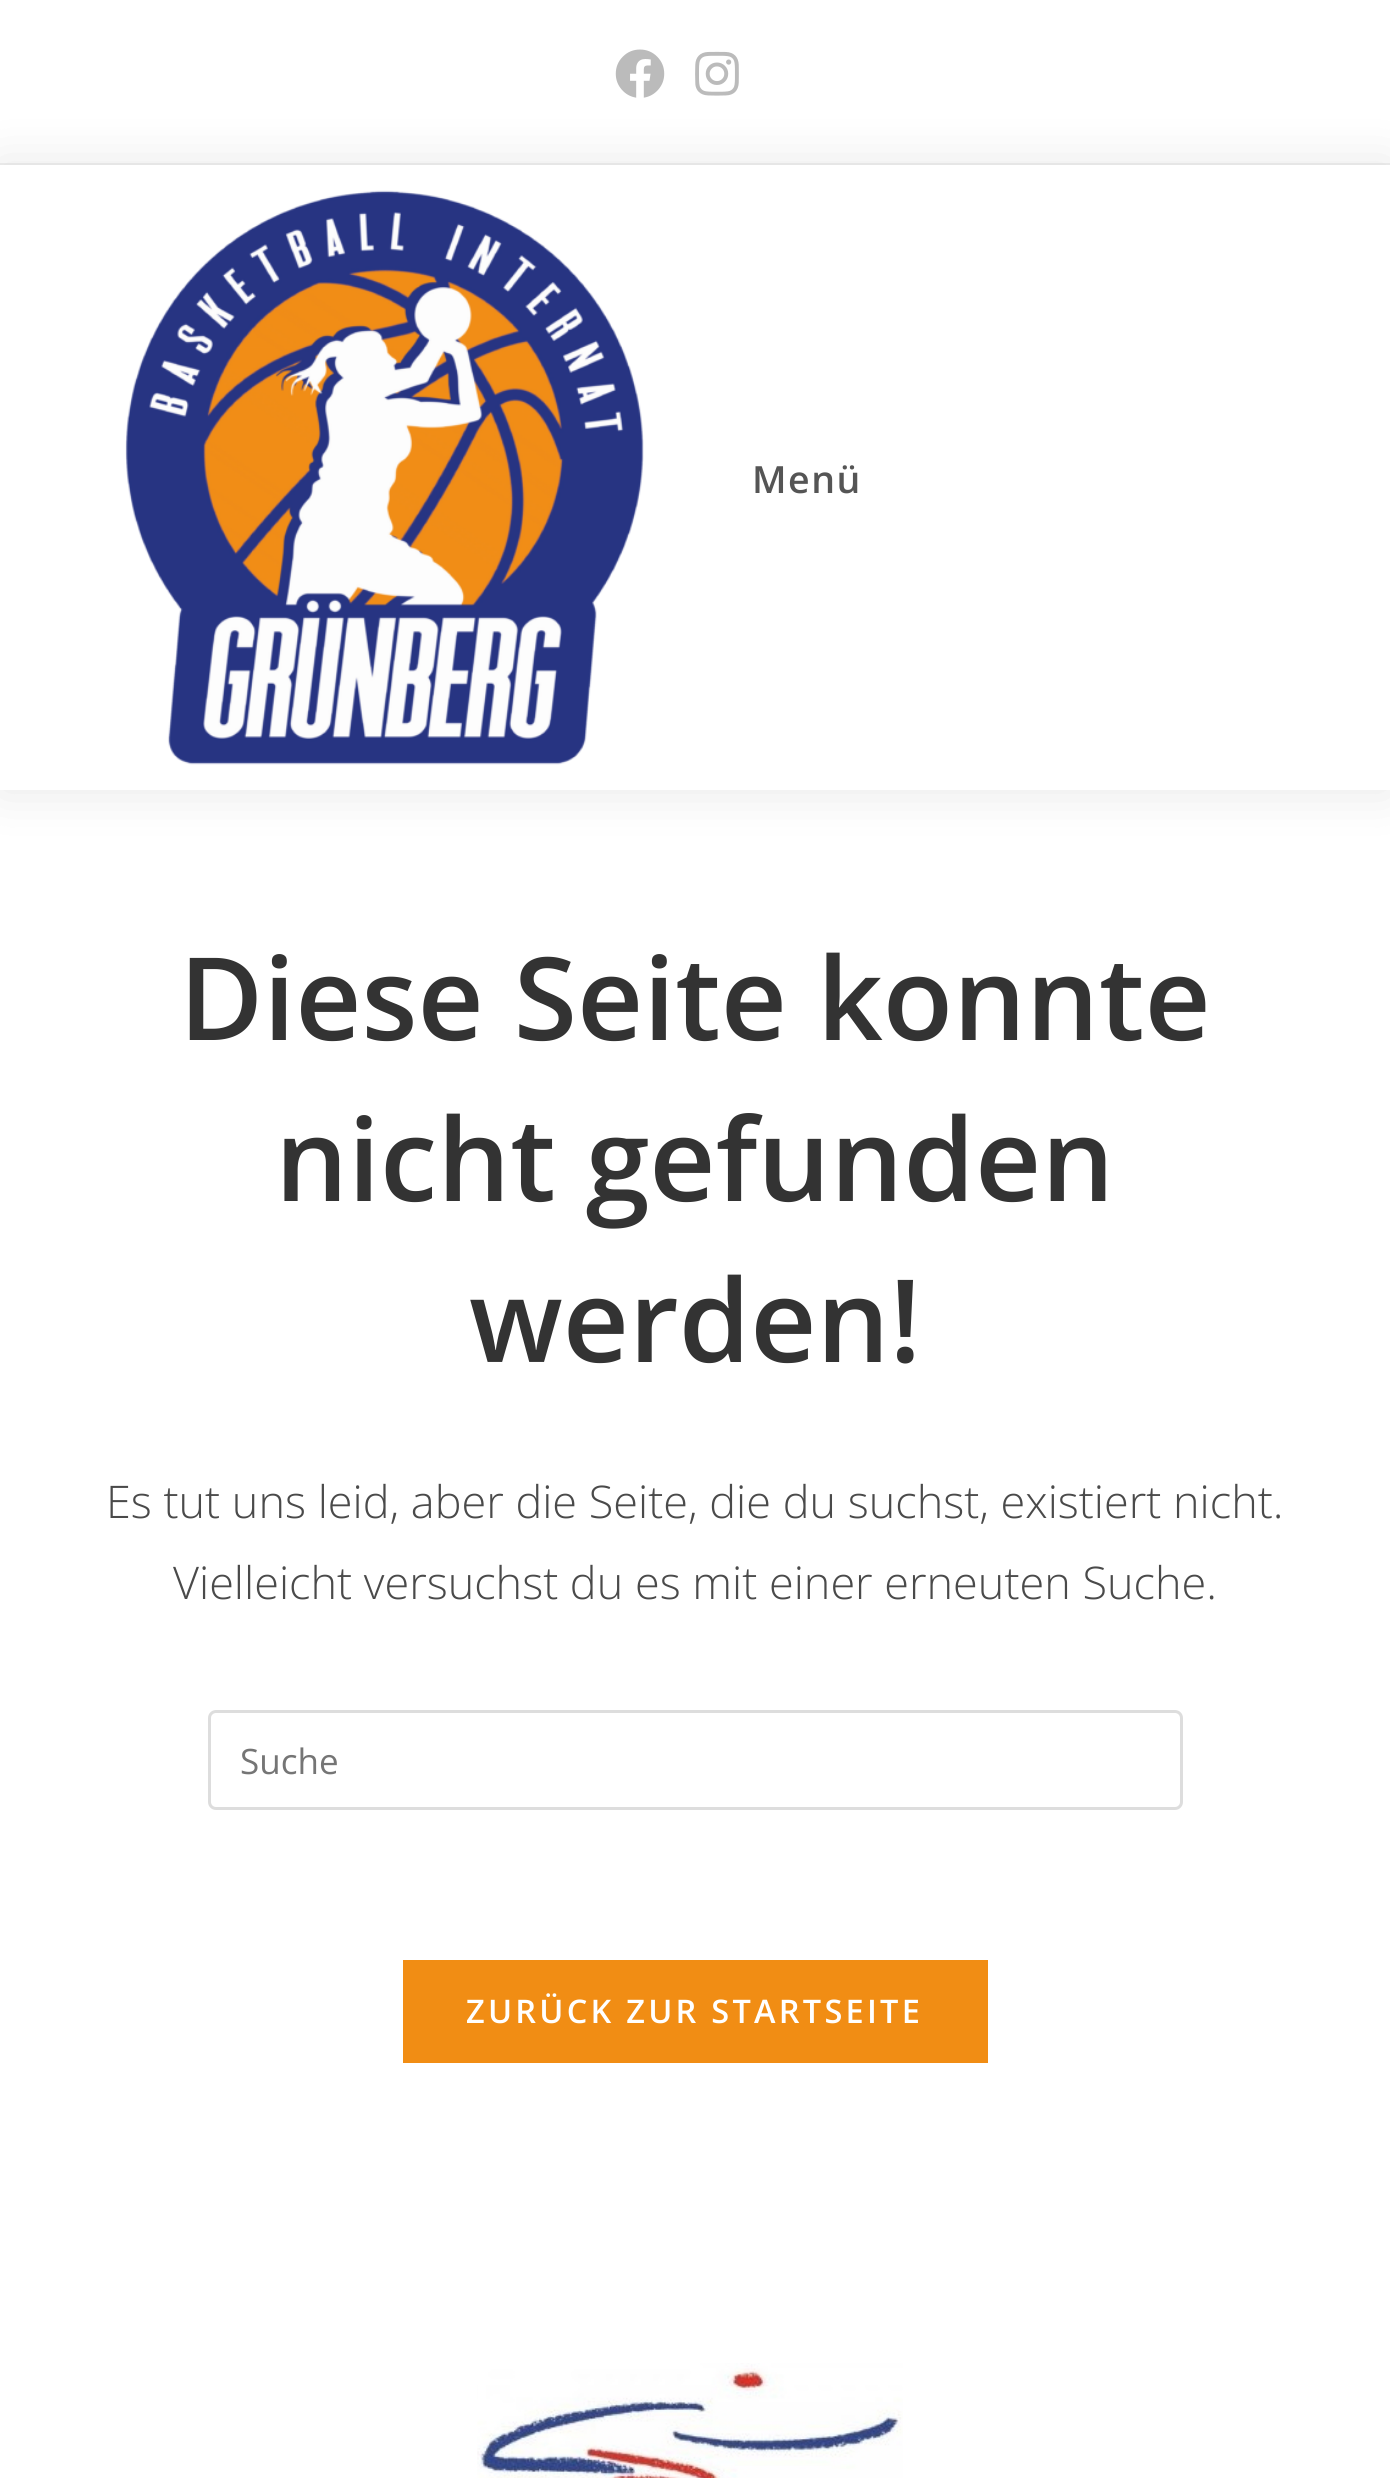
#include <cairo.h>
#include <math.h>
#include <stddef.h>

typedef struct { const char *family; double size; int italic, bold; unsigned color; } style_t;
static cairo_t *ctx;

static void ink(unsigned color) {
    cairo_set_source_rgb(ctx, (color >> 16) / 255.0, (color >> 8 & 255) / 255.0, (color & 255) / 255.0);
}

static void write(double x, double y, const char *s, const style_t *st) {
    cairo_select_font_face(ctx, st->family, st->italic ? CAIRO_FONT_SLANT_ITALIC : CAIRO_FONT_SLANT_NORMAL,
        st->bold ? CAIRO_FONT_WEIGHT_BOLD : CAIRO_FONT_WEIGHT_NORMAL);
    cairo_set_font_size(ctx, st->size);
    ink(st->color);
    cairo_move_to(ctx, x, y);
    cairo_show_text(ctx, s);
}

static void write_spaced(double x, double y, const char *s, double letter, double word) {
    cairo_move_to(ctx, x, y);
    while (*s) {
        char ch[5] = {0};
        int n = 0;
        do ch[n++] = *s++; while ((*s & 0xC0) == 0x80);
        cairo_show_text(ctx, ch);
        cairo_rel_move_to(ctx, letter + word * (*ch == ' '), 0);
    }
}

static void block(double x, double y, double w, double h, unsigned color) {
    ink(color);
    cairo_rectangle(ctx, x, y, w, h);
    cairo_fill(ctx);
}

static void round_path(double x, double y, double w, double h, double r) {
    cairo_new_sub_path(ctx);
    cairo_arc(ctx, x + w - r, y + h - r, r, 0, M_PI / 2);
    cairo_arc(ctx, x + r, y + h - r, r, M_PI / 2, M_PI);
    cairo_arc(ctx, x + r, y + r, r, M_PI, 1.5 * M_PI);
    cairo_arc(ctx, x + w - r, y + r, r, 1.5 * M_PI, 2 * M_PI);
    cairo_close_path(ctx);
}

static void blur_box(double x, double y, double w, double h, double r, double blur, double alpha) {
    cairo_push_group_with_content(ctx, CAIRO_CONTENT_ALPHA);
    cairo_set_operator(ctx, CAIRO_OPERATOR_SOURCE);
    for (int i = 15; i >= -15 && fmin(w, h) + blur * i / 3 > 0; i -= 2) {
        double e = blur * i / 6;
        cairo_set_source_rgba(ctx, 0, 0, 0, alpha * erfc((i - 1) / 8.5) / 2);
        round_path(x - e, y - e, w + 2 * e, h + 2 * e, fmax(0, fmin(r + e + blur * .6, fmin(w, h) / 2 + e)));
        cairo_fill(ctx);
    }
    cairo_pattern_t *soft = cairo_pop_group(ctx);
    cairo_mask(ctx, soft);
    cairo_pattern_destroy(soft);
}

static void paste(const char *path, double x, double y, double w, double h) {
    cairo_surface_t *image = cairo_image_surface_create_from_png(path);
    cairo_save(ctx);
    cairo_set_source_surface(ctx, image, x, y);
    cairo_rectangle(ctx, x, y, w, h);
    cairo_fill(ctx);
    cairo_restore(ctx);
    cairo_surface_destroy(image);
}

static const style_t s1 = {"Open Sans SemiBold", 115, 0, 0, 0x333333};
static const style_t s2 = {"Open Sans Light", 45, 0, 0, 0x4a4a4a};
static const style_t s3 = {"Open Sans", 35, 0, 0, 0x757575};

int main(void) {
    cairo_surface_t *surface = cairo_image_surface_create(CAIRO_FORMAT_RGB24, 1390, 2478);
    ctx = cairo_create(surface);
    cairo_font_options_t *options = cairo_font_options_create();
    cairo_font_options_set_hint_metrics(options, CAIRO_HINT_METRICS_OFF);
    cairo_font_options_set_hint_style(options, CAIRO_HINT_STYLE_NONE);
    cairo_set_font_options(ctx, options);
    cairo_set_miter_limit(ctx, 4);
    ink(0xffffff);
    cairo_paint(ctx);
    block(0, 163, 1390, 2, 0xf1f1f1);
    paste("pic1.png", 615, 49, 50, 49);
    paste("pic2.png", 695, 51, 44, 45);
    ink(0x000000);
    blur_box(0, 165, 1390, 625, 0, 25, 0.1);
    block(0, 165, 1390, 625, 0xffffff);
    paste("pic3.png", 125, 190, 519, 575);
    cairo_select_font_face(ctx, "Open Sans SemiBold", CAIRO_FONT_SLANT_NORMAL, CAIRO_FONT_WEIGHT_NORMAL);
    cairo_set_font_size(ctx, 37.5);
    ink(0x555555);
    write_spaced(752, 493, "Menü", 1.5, 0);
    write(179, 1040, "Diese Seite konnte", &s1);
    write(275, 1201, "nicht gefunden", &s1);
    write(469, 1362, "werden!", &s1);
    write(106, 1518, "Es tut uns leid, aber die Seite, die du suchst, existiert nicht.", &s2);
    write(173, 1599, "Vielleicht versuchst du es mit einer erneuten Suche.", &s2);
    round_path(209.5, 1711.5, 972, 97, 6.5);
    ink(0xdddddd);
    cairo_set_line_width(ctx, 3);
    cairo_stroke(ctx);
    write(240, 1774, "Suche", &s3);
    block(403, 1960, 585, 103, 0xf18d14);
    cairo_select_font_face(ctx, "Open Sans SemiBold", CAIRO_FONT_SLANT_NORMAL, CAIRO_FONT_WEIGHT_NORMAL);
    cairo_set_font_size(ctx, 32.5);
    ink(0xffffff);
    write_spaced(466, 2023, "ZURÜCK ZUR STARTSEITE", 3.25, 0);
    paste("pic4.png", 477, 2363, 426, 115);
    cairo_surface_write_to_png(surface, "screenshot.png");
    cairo_font_options_destroy(options);
    cairo_destroy(ctx);
    cairo_surface_destroy(surface);
    return 0;
}
